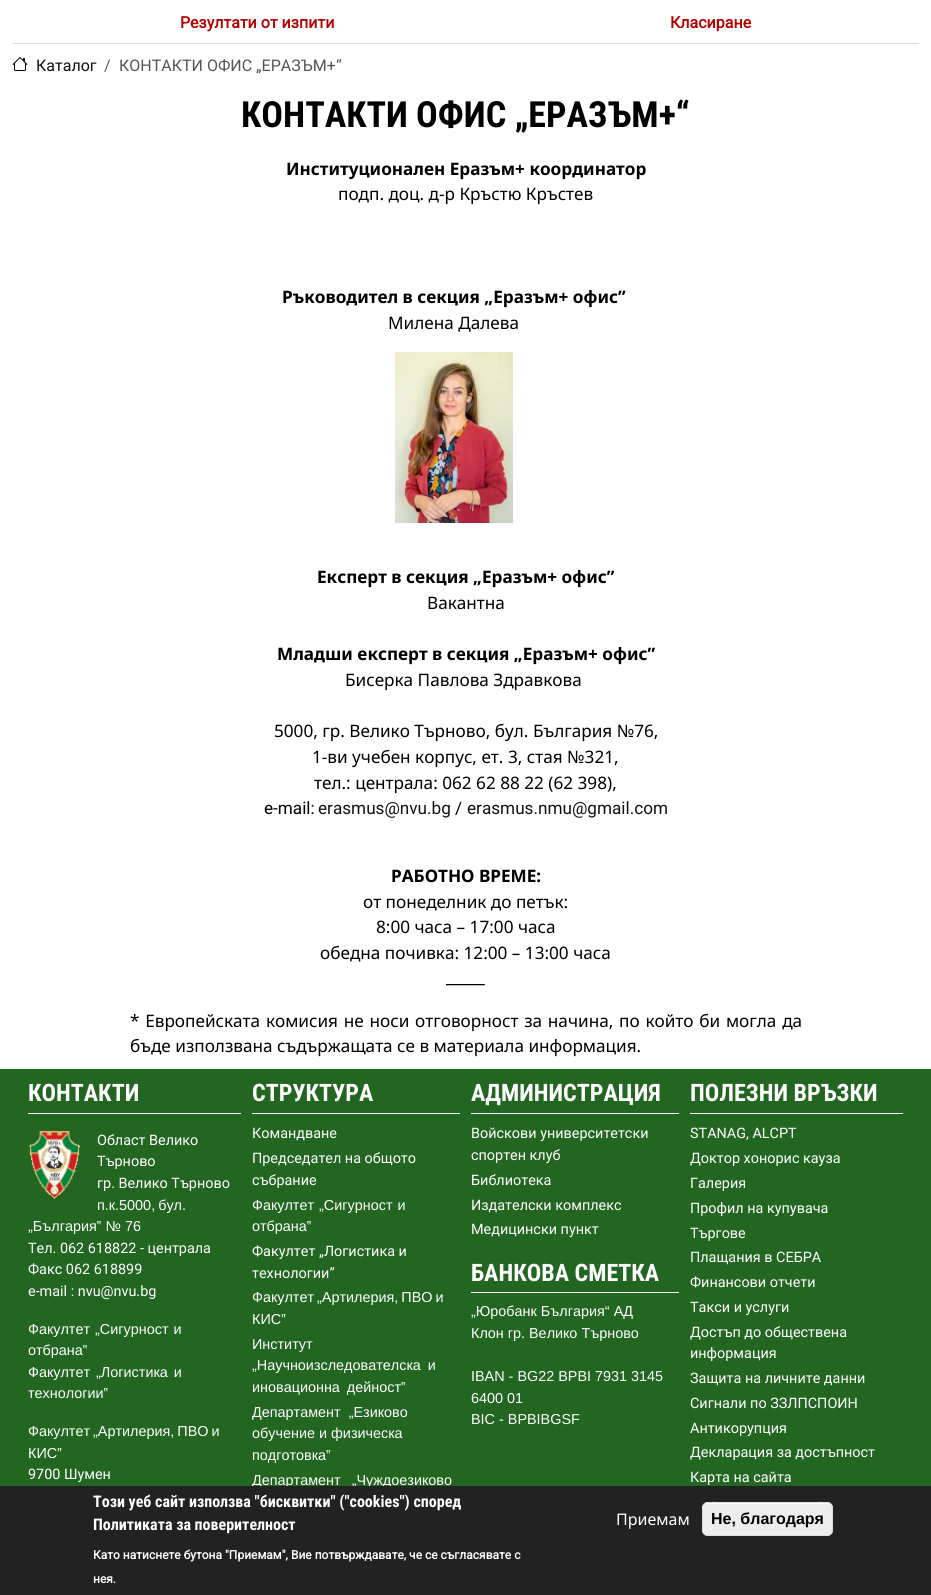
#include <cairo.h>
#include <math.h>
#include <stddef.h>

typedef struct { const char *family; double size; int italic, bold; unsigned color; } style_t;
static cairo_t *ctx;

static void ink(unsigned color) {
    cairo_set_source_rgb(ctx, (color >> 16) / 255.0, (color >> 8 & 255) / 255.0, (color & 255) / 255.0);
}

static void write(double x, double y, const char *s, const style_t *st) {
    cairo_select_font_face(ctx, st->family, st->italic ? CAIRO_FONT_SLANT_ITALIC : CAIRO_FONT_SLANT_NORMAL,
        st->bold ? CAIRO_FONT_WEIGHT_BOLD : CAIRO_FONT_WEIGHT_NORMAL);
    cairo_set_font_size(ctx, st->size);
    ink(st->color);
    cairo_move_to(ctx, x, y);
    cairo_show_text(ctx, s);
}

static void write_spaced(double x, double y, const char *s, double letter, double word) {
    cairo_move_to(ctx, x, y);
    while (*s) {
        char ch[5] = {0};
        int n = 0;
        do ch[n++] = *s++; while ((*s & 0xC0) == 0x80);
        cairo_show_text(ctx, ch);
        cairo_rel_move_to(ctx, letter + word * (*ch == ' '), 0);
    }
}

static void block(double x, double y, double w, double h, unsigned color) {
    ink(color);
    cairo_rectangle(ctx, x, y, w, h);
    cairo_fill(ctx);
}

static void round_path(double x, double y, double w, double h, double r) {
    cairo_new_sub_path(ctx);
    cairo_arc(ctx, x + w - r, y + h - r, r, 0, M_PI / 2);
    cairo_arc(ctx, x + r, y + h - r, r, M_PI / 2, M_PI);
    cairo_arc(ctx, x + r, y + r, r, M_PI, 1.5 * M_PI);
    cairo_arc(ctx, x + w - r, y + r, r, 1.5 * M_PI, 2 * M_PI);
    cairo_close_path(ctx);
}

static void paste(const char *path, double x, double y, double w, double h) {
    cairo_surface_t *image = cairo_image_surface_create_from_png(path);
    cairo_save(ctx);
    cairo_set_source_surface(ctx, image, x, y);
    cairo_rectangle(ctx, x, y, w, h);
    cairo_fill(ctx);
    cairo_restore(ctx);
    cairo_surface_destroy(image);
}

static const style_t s1 = {"Roboto", 16, 0, 1, 0xb50000};
static const style_t s2 = {"Roboto", 16, 0, 0, 0x111111};
static const style_t s3 = {"Roboto", 16, 0, 0, 0x595c5f};
static const style_t s4 = {"Roboto", 16, 0, 0, 0x555555};
static const style_t s5 = {"Roboto Condensed", 36, 0, 1, 0x000000};
static const style_t s6 = {"Noto Sans", 17.15, 0, 1, 0x000000};
static const style_t s7 = {"Noto Sans", 17.15, 0, 0, 0x000000};
static const style_t s8 = {"Roboto", 17.15, 0, 0, 0x000000};
static const style_t s9 = {"Roboto", 17.15, 0, 0, 0x111111};
static const style_t s10 = {"Roboto Condensed", 24, 0, 1, 0xffffff};
static const style_t s11 = {"Roboto", 14.4, 0, 0, 0xffffff};
static const style_t s12 = {"Liberation Sans", 14.4, 0, 0, 0xffffff};
static const style_t s13 = {"Roboto Condensed", 16, 0, 1, 0xffffff};
static const style_t s14 = {"Roboto", 12, 0, 1, 0xffffff};
static const style_t s15 = {"Noto Sans", 16, 0, 0, 0xffffff};
static const style_t s16 = {"Liberation Sans", 16, 0, 1, 0x000000};

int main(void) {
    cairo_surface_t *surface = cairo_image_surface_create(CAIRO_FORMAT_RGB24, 931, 1595);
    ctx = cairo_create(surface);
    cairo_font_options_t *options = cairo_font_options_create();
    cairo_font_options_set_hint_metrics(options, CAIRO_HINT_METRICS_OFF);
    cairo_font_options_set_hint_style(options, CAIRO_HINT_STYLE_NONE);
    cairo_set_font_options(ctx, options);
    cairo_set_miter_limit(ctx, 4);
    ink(0xffffff);
    cairo_paint(ctx);
    block(12, 43, 907, 1, 0xdee2e6);
    write(180, 28, "Резултати от изпити", &s1);
    write(670, 28, "Класиране", &s1);
    paste("pic1.png", 12, 57, 16, 14);
    write(36, 71, "Каталог", &s2);
    write(104, 71, "/", &s3);
    write(119, 71, "КОНТАКТИ ОФИС „ЕРАЗЪМ+“", &s4);
    write(241, 127, "КОНТАКТИ ОФИС „ЕРАЗЪМ+“", &s5);
    write(286, 175, "Институционален Еразъм+ координатор", &s6);
    write(338, 200, "подп. доц. д-р Кръстю Кръстев", &s7);
    write(282, 303, "Ръководител в секция „Еразъм+ офис”", &s6);
    write(388, 329, "Милена Далева", &s7);
    paste("pic2.png", 395, 352, 118, 171);
    write(317, 583, "Експерт в секция „Еразъм+ офис”", &s6);
    write(427, 609, "Вакантна", &s7);
    write(277, 660, "Младши експерт в секция „Еразъм+ офис”", &s6);
    write(345, 686, "Бисерка Павлова Здравкова", &s7);
    write(274, 737, "5000, гр. Велико Търновo, бул. България №76,", &s7);
    write(312, 763, "1-ви учебен корпус, ет. 3, стая №321,", &s7);
    write(314, 789, "тел.: централа: 062 62 88 22 (62 398),", &s7);
    write(264, 814, "e-mail:", &s8);
    write(318, 814, "erasmus@nvu.bg", &s9);
    write(455, 814, "/", &s8);
    write(467, 814, "erasmus.nmu@gmail.com", &s9);
    write(391, 882, "РАБОТНО ВРЕМЕ:", &s6);
    write(363, 908, "от понеделник до петък:", &s7);
    write(376, 933, "8:00 часа – 17:00 часа", &s7);
    write(320, 959, "обедна почивка: 12:00 – 13:00 часа", &s7);
    write(446, 984, "_____", &s8);
    cairo_select_font_face(ctx, "Noto Sans", CAIRO_FONT_SLANT_NORMAL, CAIRO_FONT_WEIGHT_NORMAL);
    write_spaced(130, 1027, "* Европейската комисия не носи отговорност за начина, по който би могла да", 0, 1.3);
    write(130, 1052, "бъде използвана съдържащата се в материала информация.", &s7);
    block(0, 1069, 931, 417, 0x226622);
    block(28, 1113, 213, 1, 0xffffff);
    write(28, 1101, "КОНТАКТИ", &s10);
    paste("pic3.png", 29, 1131, 51, 68);
    write(97, 1145, "Област Велико", &s11);
    write(97, 1166, "Търново", &s11);
    write(97, 1188, "гр. Велико Търново", &s11);
    cairo_select_font_face(ctx, "Liberation Sans", CAIRO_FONT_SLANT_NORMAL, CAIRO_FONT_WEIGHT_NORMAL);
    write_spaced(97, 1210, "п.к.5000, бул.", 0, -1);
    write(28, 1231, "„България‟ № 76", &s12);
    write(28, 1253, "Тел. 062 618822 - централа", &s11);
    write(28, 1274, "Факс 062 618899", &s11);
    write(28, 1296, "e-mail : nvu@nvu.bg", &s11);
    cairo_select_font_face(ctx, "Liberation Sans", CAIRO_FONT_SLANT_NORMAL, CAIRO_FONT_WEIGHT_NORMAL);
    write_spaced(28, 1334, "Факултет „Сигурност и", 0, 1);
    write(28, 1355, "отбрана‟", &s12);
    write_spaced(28, 1377, "Факултет „Логистика и", 0, 2);
    write(28, 1398, "технологии‟", &s12);
    write_spaced(28, 1436, "Факултет „Артилерия, ПВО и", 0, -1);
    write(28, 1458, "КИС‟", &s12);
    write(28, 1479, "9700 Шумен", &s11);
    block(252, 1113, 208, 1, 0xffffff);
    write(252, 1101, "СТРУКТУРА", &s10);
    write(252, 1138, "Командване", &s11);
    write(252, 1163, "Председател на общото", &s11);
    write(252, 1185, "събраниe", &s11);
    cairo_select_font_face(ctx, "Liberation Sans", CAIRO_FONT_SLANT_NORMAL, CAIRO_FONT_WEIGHT_NORMAL);
    write_spaced(252, 1210, "Факултет „Сигурност и", 0, 1);
    write(252, 1231, "отбрана‟", &s12);
    write(252, 1256, "Факултет „Логистика и", &s11);
    write(252, 1278, "технологии”", &s11);
    cairo_select_font_face(ctx, "Liberation Sans", CAIRO_FONT_SLANT_NORMAL, CAIRO_FONT_WEIGHT_NORMAL);
    write_spaced(252, 1302, "Факултет „Артилерия, ПВО и", 0, -1);
    write(252, 1324, "КИС‟", &s12);
    write(252, 1349, "Институт", &s12);
    write_spaced(252, 1370, "„Научноизследователска и", 0, 3);
    write_spaced(252, 1392, "иновационна дейност‟", 0, 3);
    write_spaced(252, 1417, "Департамент „Езиково", 0, 4);
    write(252, 1438, "обучение и физическа", &s12);
    write(252, 1460, "подготовка‟", &s12);
    write_spaced(252, 1485, "Департамент „Чуждоезиково", 0, 7);
    block(471, 1113, 208, 1, 0xffffff);
    write(471, 1101, "АДМИНИСТРАЦИЯ", &s10);
    write(471, 1138, "Войскови университетски", &s11);
    write(471, 1160, "спортен клуб", &s11);
    write(471, 1185, "Библиотека", &s11);
    write(471, 1210, "Издателски комплекс", &s11);
    write(471, 1234, "Медицински пункт", &s11);
    block(471, 1292, 208, 1, 0xffffff);
    write(471, 1281, "БАНКОВА СМЕТКА", &s10);
    write(471, 1316, "„Юробанк България“ АД", &s12);
    write(471, 1338, "Клон гр. Велико Търново", &s12);
    write(471, 1381, "IBAN - BG22 BPBI 7931 3145", &s12);
    write(471, 1403, "6400 01", &s12);
    write(471, 1424, "BIC - BPBIBGSF", &s12);
    block(690, 1113, 213, 1, 0xffffff);
    write(690, 1101, "ПОЛЕЗНИ ВРЪЗКИ", &s10);
    write(690, 1138, "STANAG, ALCPT", &s11);
    write(690, 1163, "Доктор хонорис кауза", &s11);
    write(690, 1188, "Галерия", &s11);
    write(690, 1213, "Профил на купувача", &s11);
    write(690, 1238, "Търгове", &s11);
    write(690, 1262, "Плащания в СЕБРА", &s11);
    write(690, 1287, "Финансови отчети", &s11);
    write(690, 1312, "Такси и услуги", &s11);
    write(690, 1337, "Достъп до обществена", &s11);
    write(690, 1358, "информация", &s11);
    write(690, 1383, "Защита на личните данни", &s11);
    write(690, 1408, "Сигнали по ЗЗЛПСПОИН", &s11);
    write(690, 1433, "Антикорупция", &s11);
    write(690, 1457, "Декларация за достъпност", &s11);
    write(690, 1482, "Карта на сайта", &s11);
    block(0, 1486, 931, 109, 0x222222);
    write(93, 1507, "Този уеб сайт използва \"бисквитки\" (\"cookies\") според", &s13);
    write(93, 1530, "Политиката за поверителност", &s13);
    write(93, 1559, "Като натиснете бутона \"Приемам\", Вие потвърждавате, че се съгласявате с", &s14);
    write(93, 1583, "нея.", &s14);
    write(616, 1525, "Приемам", &s15);
    ink(0xededed);
    round_path(702, 1502, 131, 34, 6);
    cairo_fill(ctx);
    ink(0xffffff);
    cairo_new_path(ctx);
    cairo_move_to(ctx, 708, 1504);
    cairo_line_to(ctx, 827, 1504);
    cairo_curve_to(ctx, 830, 1504, 832, 1506, 832, 1509);
    cairo_curve_to(ctx, 832, 1498, 811, 1503, 807, 1503);
    cairo_line_to(ctx, 728, 1503);
    cairo_curve_to(ctx, 724, 1503, 703, 1498, 703, 1509);
    cairo_curve_to(ctx, 703, 1506, 705, 1504, 708, 1504);
    cairo_close_path(ctx);
    cairo_fill(ctx);
    round_path(702.5, 1502.5, 130, 33, 5.5);
    ink(0xdcdcdc);
    cairo_set_line_width(ctx, 1);
    cairo_stroke(ctx);
    write(711, 1524, "Не, благодаря", &s16);
    cairo_surface_write_to_png(surface, "screenshot.png");
    cairo_font_options_destroy(options);
    cairo_destroy(ctx);
    cairo_surface_destroy(surface);
    return 0;
}
